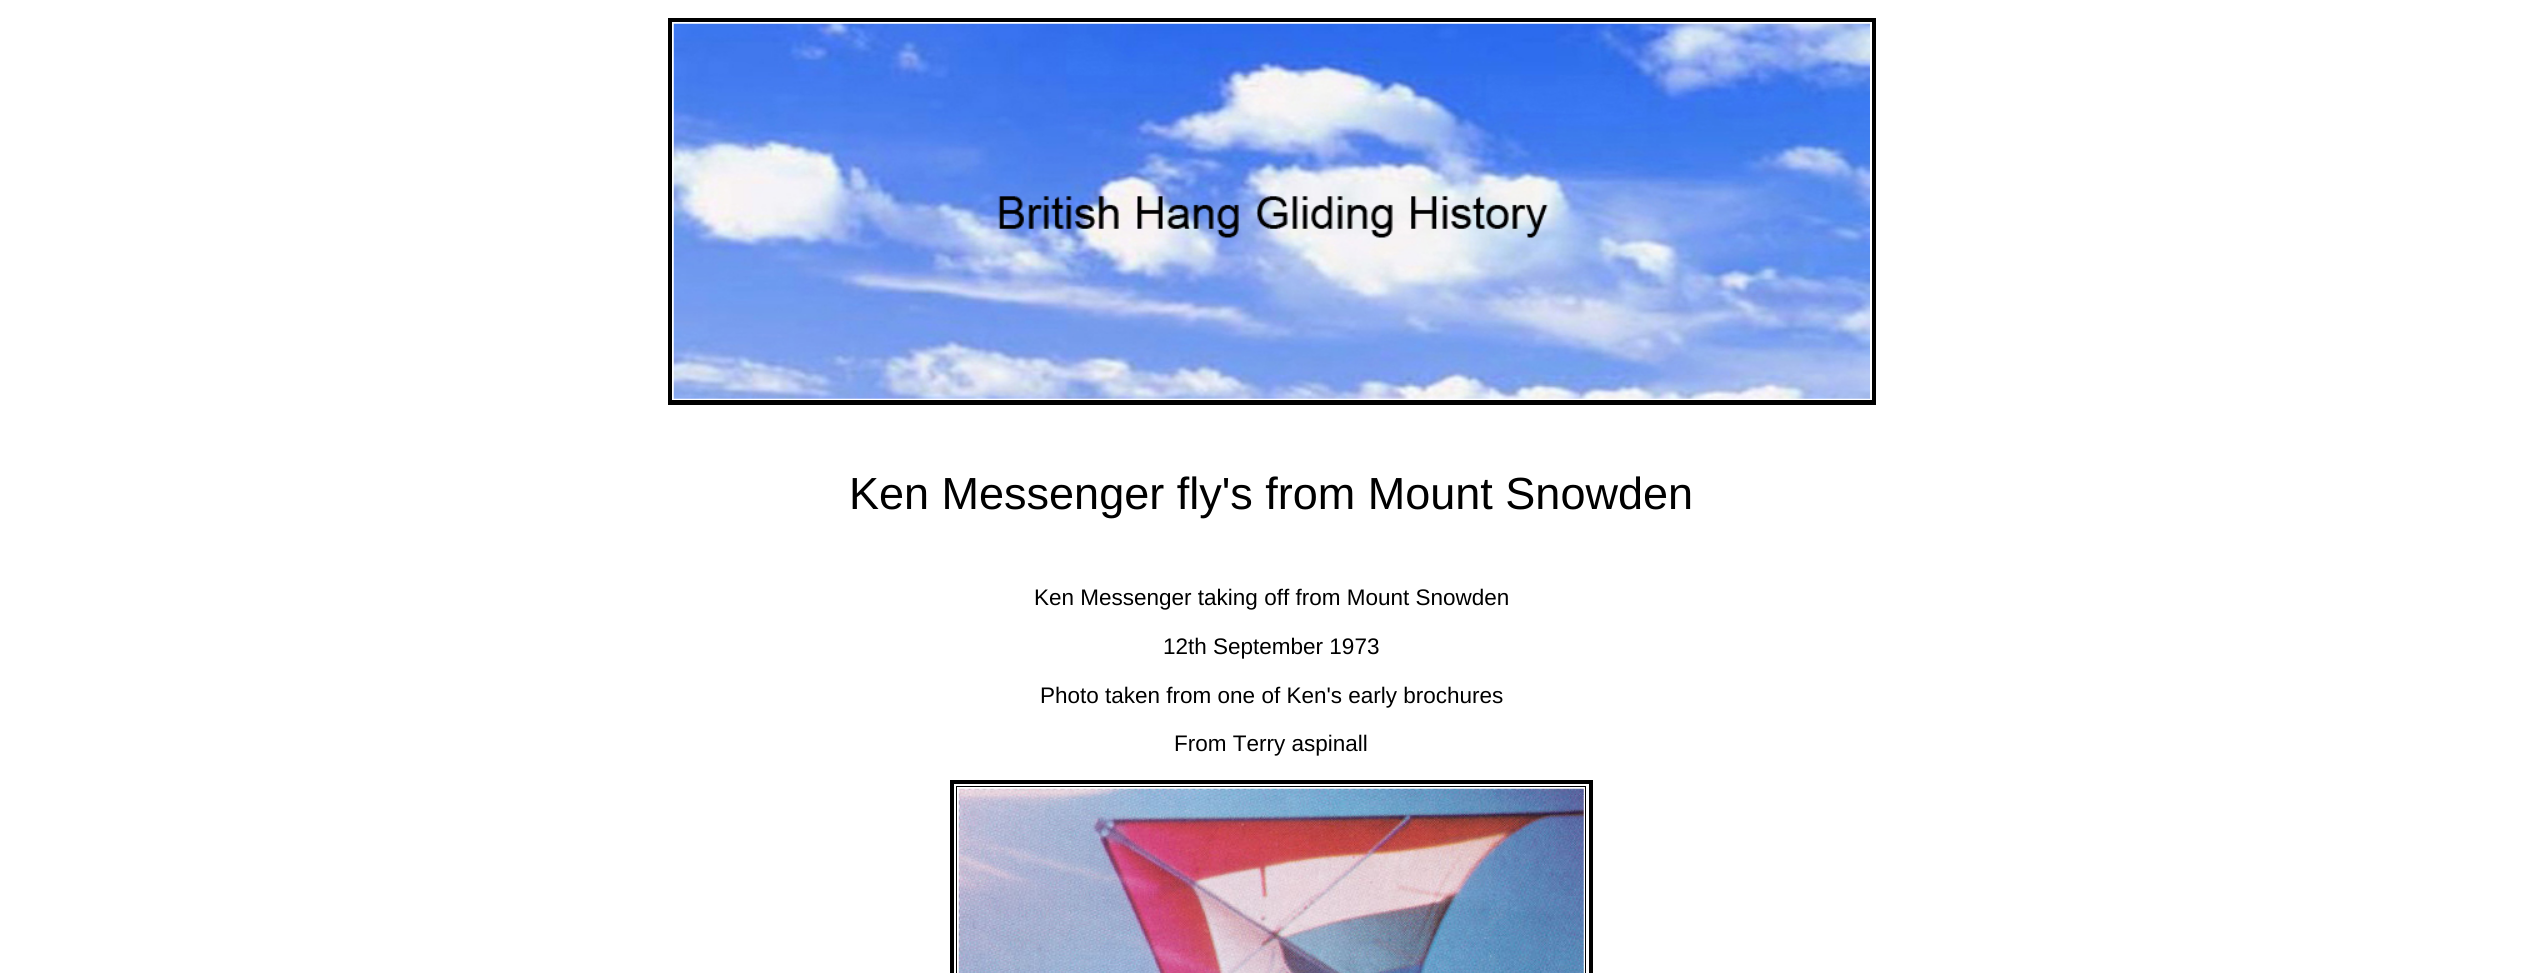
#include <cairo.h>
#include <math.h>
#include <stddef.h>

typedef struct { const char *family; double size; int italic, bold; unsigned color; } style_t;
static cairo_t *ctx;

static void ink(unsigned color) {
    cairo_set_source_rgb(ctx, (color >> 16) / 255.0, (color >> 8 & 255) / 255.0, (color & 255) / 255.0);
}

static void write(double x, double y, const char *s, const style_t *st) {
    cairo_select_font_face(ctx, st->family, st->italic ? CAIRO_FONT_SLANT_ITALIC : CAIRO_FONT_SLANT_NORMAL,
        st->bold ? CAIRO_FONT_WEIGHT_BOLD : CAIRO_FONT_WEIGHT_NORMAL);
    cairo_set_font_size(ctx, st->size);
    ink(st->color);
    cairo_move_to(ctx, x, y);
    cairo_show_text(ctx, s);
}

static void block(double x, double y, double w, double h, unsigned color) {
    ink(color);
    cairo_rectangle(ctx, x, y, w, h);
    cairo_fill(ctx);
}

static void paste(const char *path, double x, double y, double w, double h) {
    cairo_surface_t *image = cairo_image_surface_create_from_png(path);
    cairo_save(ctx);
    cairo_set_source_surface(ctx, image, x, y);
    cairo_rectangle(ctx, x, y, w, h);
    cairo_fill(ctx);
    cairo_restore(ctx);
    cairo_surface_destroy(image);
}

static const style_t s1 = {"Liberation Sans", 45, 0, 0, 0x000000};
static const style_t s2 = {"Liberation Sans", 22.5, 0, 0, 0x000000};

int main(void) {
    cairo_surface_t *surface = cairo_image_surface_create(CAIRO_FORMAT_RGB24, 2542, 973);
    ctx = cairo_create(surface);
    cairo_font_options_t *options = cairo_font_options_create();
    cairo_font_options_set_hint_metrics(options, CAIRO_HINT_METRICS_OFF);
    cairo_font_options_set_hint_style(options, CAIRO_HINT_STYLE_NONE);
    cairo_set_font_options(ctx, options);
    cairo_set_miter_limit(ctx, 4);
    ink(0xffffff);
    cairo_paint(ctx);
    block(668, 18, 1208, 387, 0x000000);
    block(672, 22, 1200, 378, 0xffffff);
    paste("pic1.png", 673, 23, 1197, 376);
    write(849, 509, "Ken Messenger fly's from Mount Snowden", &s1);
    write(1034, 605, "Ken Messenger taking off from Mount Snowden", &s2);
    write(1163, 654, "12th September 1973", &s2);
    write(1040, 703, "Photo taken from one of Ken's early brochures", &s2);
    write(1174, 751, "From Terry aspinall", &s2);
    cairo_rectangle(ctx, 952, 782, 639, 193);
    cairo_set_line_width(ctx, 4);
    cairo_stroke(ctx);
    cairo_rectangle(ctx, 956.5, 786.5, 629, 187);
    cairo_set_line_width(ctx, 1);
    cairo_stroke(ctx);
    paste("pic2.png", 958, 788, 626, 185);
    cairo_surface_write_to_png(surface, "screenshot.png");
    cairo_font_options_destroy(options);
    cairo_destroy(ctx);
    cairo_surface_destroy(surface);
    return 0;
}
